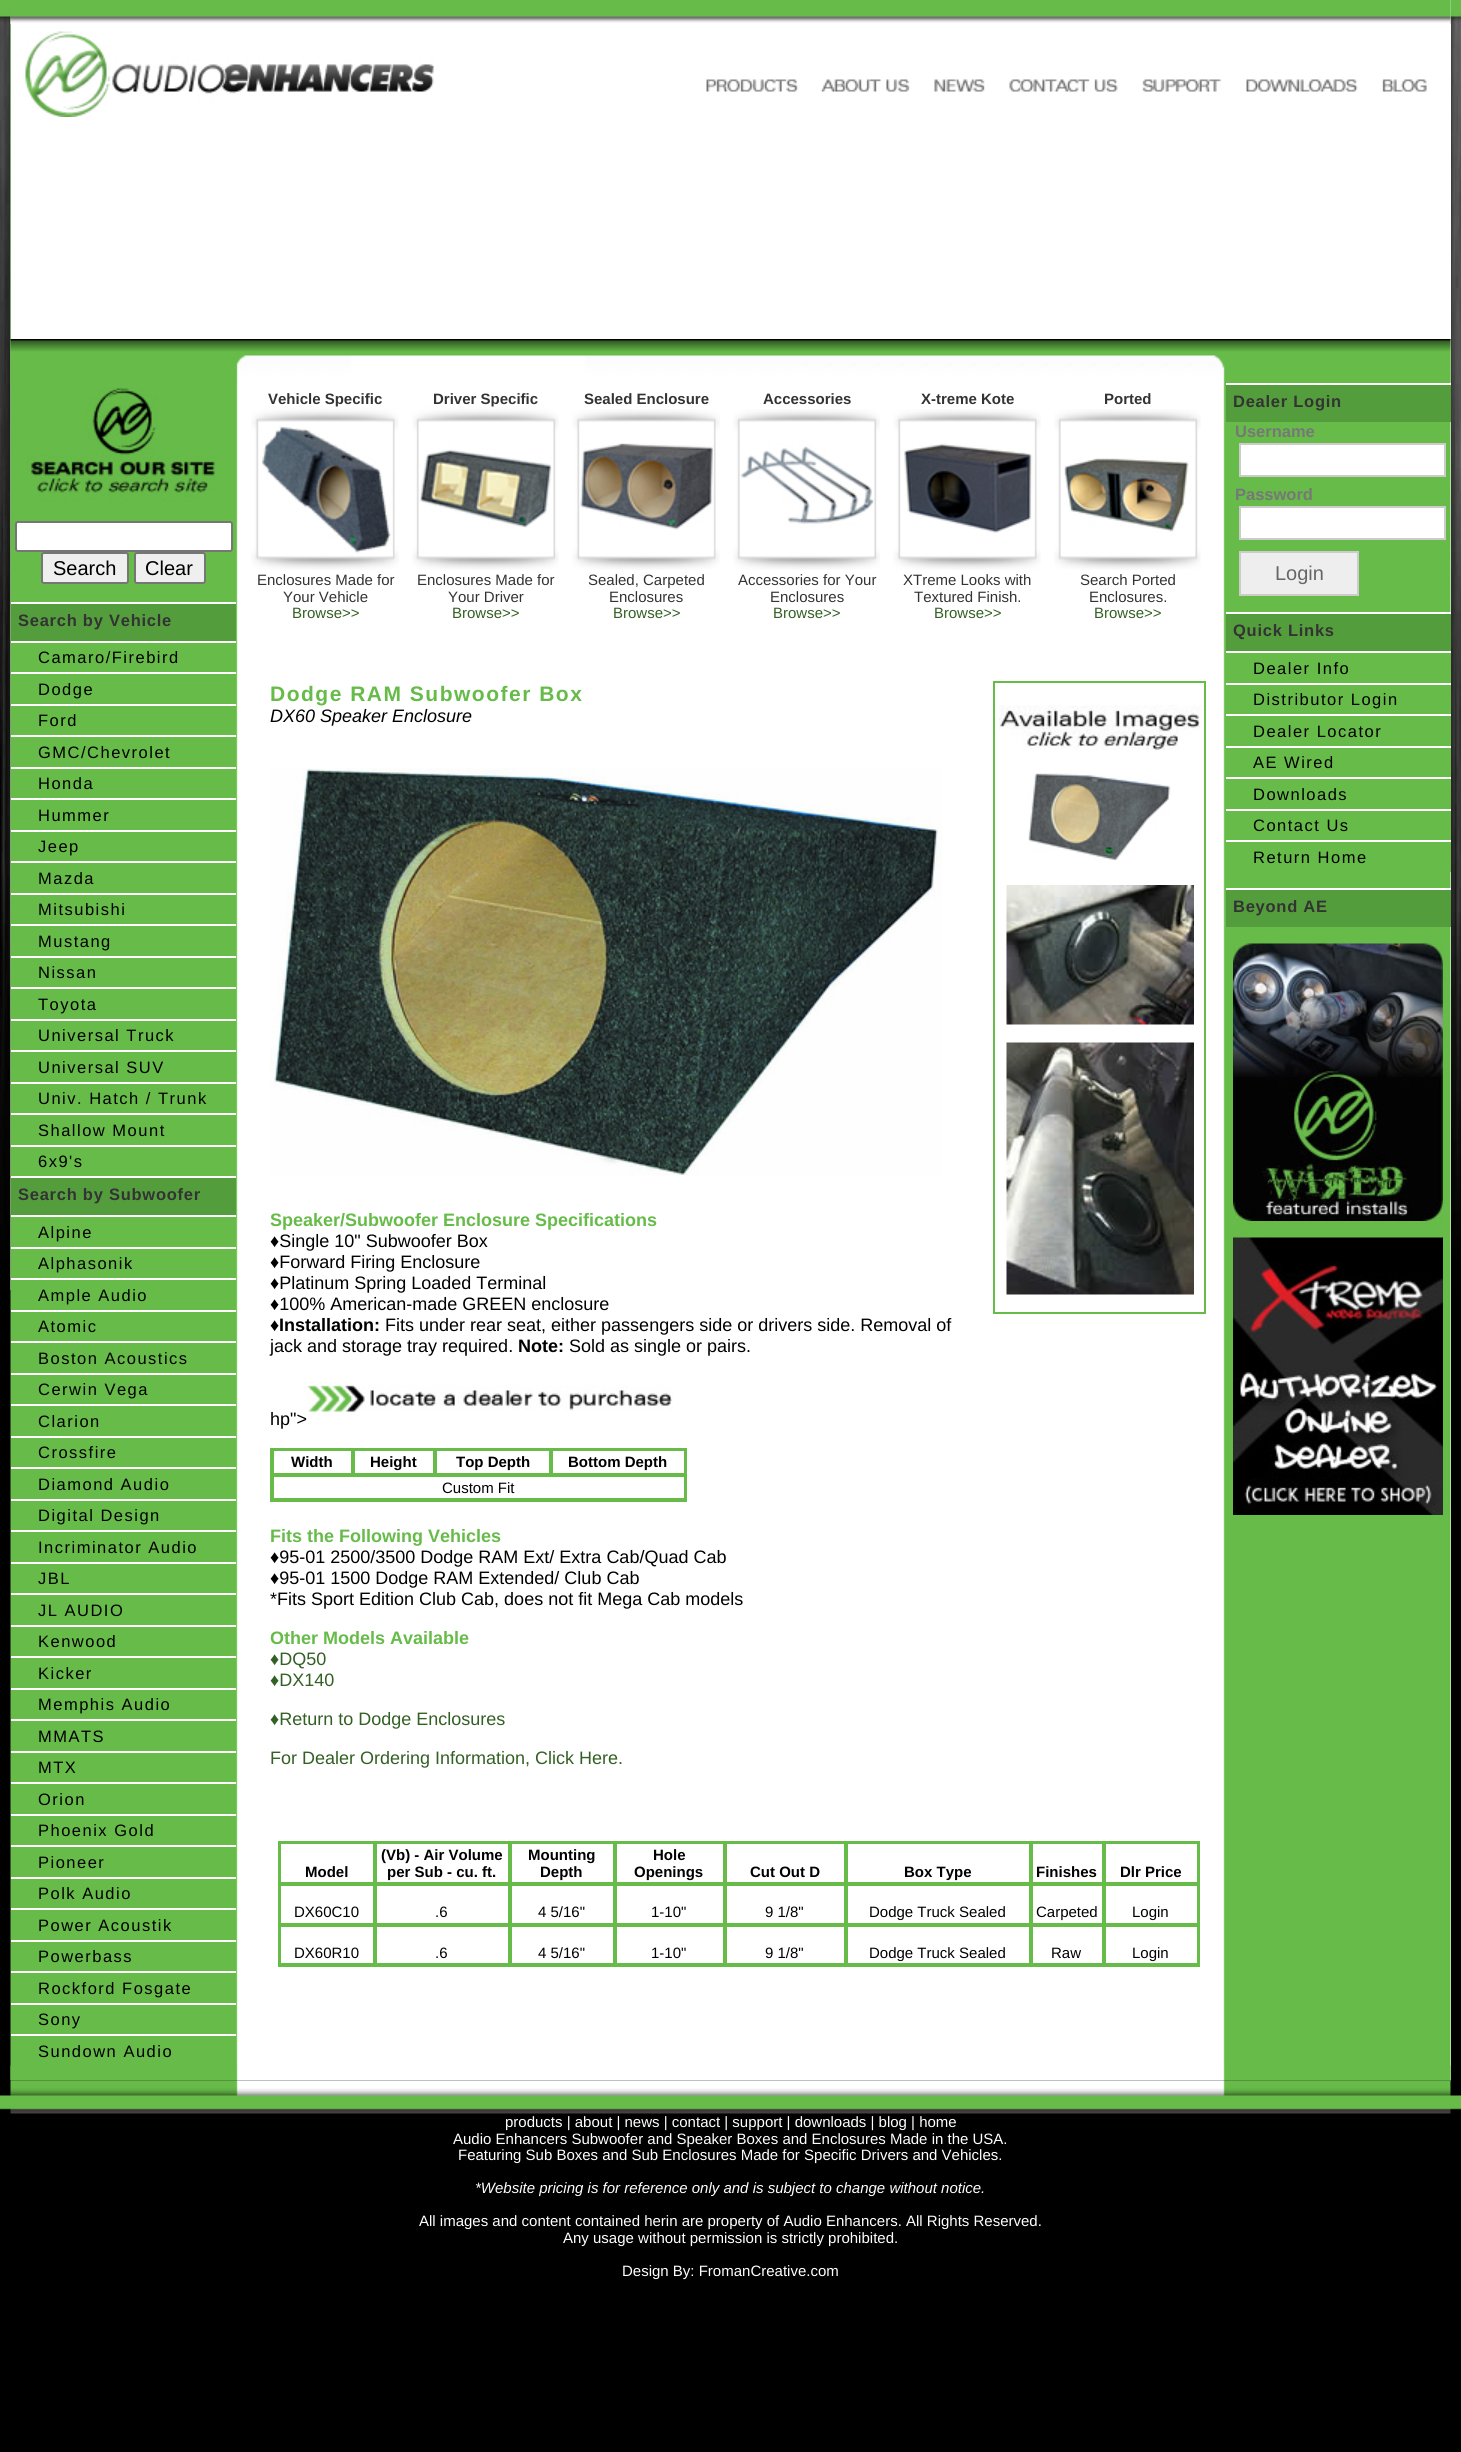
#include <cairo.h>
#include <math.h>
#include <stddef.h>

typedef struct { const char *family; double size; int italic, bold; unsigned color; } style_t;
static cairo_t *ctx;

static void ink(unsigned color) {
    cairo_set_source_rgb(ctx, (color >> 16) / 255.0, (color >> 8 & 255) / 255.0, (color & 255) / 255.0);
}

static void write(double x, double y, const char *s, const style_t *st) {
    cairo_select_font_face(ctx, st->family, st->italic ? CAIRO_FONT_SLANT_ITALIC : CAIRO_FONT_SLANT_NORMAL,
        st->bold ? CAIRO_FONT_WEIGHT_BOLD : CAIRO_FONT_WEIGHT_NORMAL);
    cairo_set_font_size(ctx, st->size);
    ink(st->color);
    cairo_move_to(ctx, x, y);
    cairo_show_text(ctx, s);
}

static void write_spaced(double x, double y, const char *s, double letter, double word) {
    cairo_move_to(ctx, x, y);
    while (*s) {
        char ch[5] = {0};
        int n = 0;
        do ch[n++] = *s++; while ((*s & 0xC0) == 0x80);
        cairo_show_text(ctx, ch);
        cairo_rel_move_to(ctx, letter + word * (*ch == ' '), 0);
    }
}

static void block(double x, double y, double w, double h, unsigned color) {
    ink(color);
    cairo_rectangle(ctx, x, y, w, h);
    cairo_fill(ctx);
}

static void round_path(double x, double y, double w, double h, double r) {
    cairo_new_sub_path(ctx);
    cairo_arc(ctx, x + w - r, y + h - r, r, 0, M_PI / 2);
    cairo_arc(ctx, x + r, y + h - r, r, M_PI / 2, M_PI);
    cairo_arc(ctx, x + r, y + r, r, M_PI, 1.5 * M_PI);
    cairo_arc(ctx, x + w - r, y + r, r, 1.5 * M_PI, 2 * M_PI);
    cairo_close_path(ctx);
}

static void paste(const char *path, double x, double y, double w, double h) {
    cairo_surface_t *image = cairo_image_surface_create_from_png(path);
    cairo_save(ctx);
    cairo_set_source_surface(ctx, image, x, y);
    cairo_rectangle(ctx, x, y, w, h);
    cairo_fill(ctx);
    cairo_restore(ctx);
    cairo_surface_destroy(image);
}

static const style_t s1 = {"Liberation Sans", 20, 0, 0, 0x000000};
static const style_t s2 = {"Liberation Sans", 15, 0, 1, 0x333333};
static const style_t s3 = {"Liberation Sans", 15, 0, 0, 0x333333};
static const style_t s4 = {"Liberation Sans", 15, 0, 0, 0x336024};
static const style_t s5 = {"Liberation Sans", 18, 1, 0, 0x000000};
static const style_t s6 = {"Liberation Sans", 18, 0, 1, 0x66bb49};
static const style_t s7 = {"Liberation Sans", 18, 0, 0, 0x000000};
static const style_t s8 = {"Liberation Sans", 18, 0, 1, 0x000000};
static const style_t s9 = {"Liberation Sans", 15, 0, 1, 0x000000};
static const style_t s10 = {"Liberation Sans", 15, 0, 0, 0x000000};
static const style_t s11 = {"Liberation Sans", 18, 0, 0, 0x336024};
static const style_t s12 = {"Liberation Sans", 16.5, 0, 1, 0x777777};
static const style_t s13 = {"Liberation Sans", 20, 0, 0, 0x666666};
static const style_t s14 = {"Liberation Sans", 15, 0, 0, 0xffffff};
static const style_t s15 = {"Liberation Sans", 15, 1, 0, 0xffffff};

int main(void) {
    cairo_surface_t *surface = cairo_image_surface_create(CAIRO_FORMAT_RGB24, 1461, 2452);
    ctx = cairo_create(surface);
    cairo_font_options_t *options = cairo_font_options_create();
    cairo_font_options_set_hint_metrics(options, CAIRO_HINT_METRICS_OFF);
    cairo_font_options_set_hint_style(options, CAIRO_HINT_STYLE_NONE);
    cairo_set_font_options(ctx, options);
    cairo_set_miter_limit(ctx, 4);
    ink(0x000000);
    cairo_paint(ctx);
    paste("pic1.png", 0, 0, 1461, 1290);
    block(11, 0, 1440, 2081, 0xffffff);
    paste("pic2.png", 10, 0, 1441, 2081);
    paste("pic3.png", 10, 0, 1441, 24);
    block(11, 24, 1440, 315, 0xffffff);
    paste("pic4.png", 25, 31, 409, 86);
    paste("pic5.png", 706, 79, 93, 13);
    paste("pic6.png", 820, 79, 90, 13);
    paste("pic7.png", 934, 79, 51, 13);
    paste("pic8.png", 1009, 79, 109, 13);
    paste("pic9.png", 1142, 79, 80, 13);
    paste("pic10.png", 1246, 79, 112, 13);
    paste("pic11.png", 1382, 79, 45, 13);
    paste("pic12.png", 10, 339, 1441, 44);
    paste("pic13.png", 27, 387, 190, 115);
    round_path(16, 522, 216, 29, 2);
    cairo_fill_preserve(ctx);
    ink(0x767676);
    cairo_stroke(ctx);
    ink(0xefefef);
    round_path(42, 553, 86, 30, 2);
    cairo_fill_preserve(ctx);
    ink(0x767676);
    cairo_stroke(ctx);
    write(53, 575, "Search", &s1);
    ink(0xefefef);
    round_path(135, 553, 70, 30, 2);
    cairo_fill_preserve(ctx);
    ink(0x767676);
    cairo_stroke(ctx);
    write(145, 575, "Clear", &s1);
    block(11, 604, 225, 37, 0x549d3c);
    block(11, 602, 225, 2, 0xffffff);
    cairo_select_font_face(ctx, "Liberation Sans", CAIRO_FONT_SLANT_NORMAL, CAIRO_FONT_WEIGHT_BOLD);
    cairo_set_font_size(ctx, 16.5);
    ink(0x333333);
    write_spaced(18, 626, "Search by Vehicle", 0.75, 0);
    block(11, 641, 225, 2, 0xffffff);
    cairo_select_font_face(ctx, "Liberation Sans", CAIRO_FONT_SLANT_NORMAL, CAIRO_FONT_WEIGHT_NORMAL);
    ink(0x000000);
    write_spaced(38, 663, "Camaro/Firebird", 1.5, 0);
    block(11, 672, 225, 2, 0xffffff);
    ink(0x000000);
    write_spaced(38, 695, "Dodge", 1.5, 0);
    block(11, 704, 225, 2, 0xffffff);
    ink(0x000000);
    write_spaced(38, 726, "Ford", 1.5, 0);
    block(11, 735, 225, 2, 0xffffff);
    ink(0x000000);
    write_spaced(38, 758, "GMC/Chevrolet", 1.5, 0);
    block(11, 767, 225, 2, 0xffffff);
    ink(0x000000);
    write_spaced(38, 789, "Honda", 1.5, 0);
    block(11, 798, 225, 2, 0xffffff);
    ink(0x000000);
    write_spaced(38, 821, "Hummer", 1.5, 0);
    block(11, 830, 225, 2, 0xffffff);
    ink(0x000000);
    write_spaced(38, 852, "Jeep", 1.5, 0);
    block(11, 861, 225, 2, 0xffffff);
    ink(0x000000);
    write_spaced(38, 884, "Mazda", 1.5, 0);
    block(11, 893, 225, 2, 0xffffff);
    ink(0x000000);
    write_spaced(38, 915, "Mitsubishi", 1.5, 0);
    block(11, 924, 225, 2, 0xffffff);
    ink(0x000000);
    write_spaced(38, 947, "Mustang", 1.5, 0);
    block(11, 956, 225, 2, 0xffffff);
    ink(0x000000);
    write_spaced(38, 978, "Nissan", 1.5, 0);
    block(11, 987, 225, 2, 0xffffff);
    ink(0x000000);
    write_spaced(38, 1010, "Toyota", 1.5, 0);
    block(11, 1019, 225, 2, 0xffffff);
    ink(0x000000);
    write_spaced(38, 1041, "Universal Truck", 1.5, 0);
    block(11, 1050, 225, 2, 0xffffff);
    ink(0x000000);
    write_spaced(38, 1073, "Universal SUV", 1.5, 0);
    block(11, 1082, 225, 2, 0xffffff);
    ink(0x000000);
    write_spaced(38, 1104, "Univ. Hatch / Trunk", 1.5, 0);
    block(11, 1113, 225, 2, 0xffffff);
    ink(0x000000);
    write_spaced(38, 1136, "Shallow Mount", 1.5, 0);
    block(11, 1145, 225, 2, 0xffffff);
    ink(0x000000);
    write_spaced(38, 1167, "6x9's", 1.5, 0);
    block(11, 1178, 225, 37, 0x549d3c);
    block(11, 1176, 225, 2, 0xffffff);
    cairo_select_font_face(ctx, "Liberation Sans", CAIRO_FONT_SLANT_NORMAL, CAIRO_FONT_WEIGHT_BOLD);
    ink(0x333333);
    write_spaced(18, 1200, "Search by Subwoofer", 0.75, 0);
    block(11, 1215, 225, 2, 0xffffff);
    cairo_select_font_face(ctx, "Liberation Sans", CAIRO_FONT_SLANT_NORMAL, CAIRO_FONT_WEIGHT_NORMAL);
    ink(0x000000);
    write_spaced(38, 1238, "Alpine", 1.5, 0);
    block(11, 1247, 225, 2, 0xffffff);
    ink(0x000000);
    write_spaced(38, 1269, "Alphasonik", 1.5, 0);
    block(11, 1278, 225, 2, 0xffffff);
    ink(0x000000);
    write_spaced(38, 1301, "Ample Audio", 1.5, 0);
    block(11, 1310, 225, 2, 0xffffff);
    ink(0x000000);
    write_spaced(38, 1332, "Atomic", 1.5, 0);
    block(11, 1341, 225, 2, 0xffffff);
    ink(0x000000);
    write_spaced(38, 1364, "Boston Acoustics", 1.5, 0);
    block(11, 1373, 225, 2, 0xffffff);
    ink(0x000000);
    write_spaced(38, 1395, "Cerwin Vega", 1.5, 0);
    block(11, 1404, 225, 2, 0xffffff);
    ink(0x000000);
    write_spaced(38, 1427, "Clarion", 1.5, 0);
    block(11, 1436, 225, 2, 0xffffff);
    ink(0x000000);
    write_spaced(38, 1458, "Crossfire", 1.5, 0);
    block(11, 1467, 225, 2, 0xffffff);
    ink(0x000000);
    write_spaced(38, 1490, "Diamond Audio", 1.5, 0);
    block(11, 1499, 225, 2, 0xffffff);
    ink(0x000000);
    write_spaced(38, 1521, "Digital Design", 1.5, 0);
    block(11, 1530, 225, 2, 0xffffff);
    ink(0x000000);
    write_spaced(38, 1553, "Incriminator Audio", 1.5, 0);
    block(11, 1562, 225, 2, 0xffffff);
    ink(0x000000);
    write_spaced(38, 1584, "JBL", 1.5, 0);
    block(11, 1593, 225, 2, 0xffffff);
    ink(0x000000);
    write_spaced(38, 1616, "JL AUDIO", 1.5, 0);
    block(11, 1625, 225, 2, 0xffffff);
    ink(0x000000);
    write_spaced(38, 1647, "Kenwood", 1.5, 0);
    block(11, 1656, 225, 2, 0xffffff);
    ink(0x000000);
    write_spaced(38, 1679, "Kicker", 1.5, 0);
    block(11, 1688, 225, 2, 0xffffff);
    ink(0x000000);
    write_spaced(38, 1710, "Memphis Audio", 1.5, 0);
    block(11, 1719, 225, 2, 0xffffff);
    ink(0x000000);
    write_spaced(38, 1742, "MMATS", 1.5, 0);
    block(11, 1751, 225, 2, 0xffffff);
    ink(0x000000);
    write_spaced(38, 1773, "MTX", 1.5, 0);
    block(11, 1782, 225, 2, 0xffffff);
    ink(0x000000);
    write_spaced(38, 1805, "Orion", 1.5, 0);
    block(11, 1814, 225, 2, 0xffffff);
    ink(0x000000);
    write_spaced(38, 1836, "Phoenix Gold", 1.5, 0);
    block(11, 1845, 225, 2, 0xffffff);
    ink(0x000000);
    write_spaced(38, 1868, "Pioneer", 1.5, 0);
    block(11, 1877, 225, 2, 0xffffff);
    ink(0x000000);
    write_spaced(38, 1899, "Polk Audio", 1.5, 0);
    block(11, 1908, 225, 2, 0xffffff);
    ink(0x000000);
    write_spaced(38, 1931, "Power Acoustik", 1.5, 0);
    block(11, 1940, 225, 2, 0xffffff);
    ink(0x000000);
    write_spaced(38, 1962, "Powerbass", 1.5, 0);
    block(11, 1971, 225, 2, 0xffffff);
    ink(0x000000);
    write_spaced(38, 1994, "Rockford Fosgate", 1.5, 0);
    block(11, 2003, 225, 2, 0xffffff);
    ink(0x000000);
    write_spaced(38, 2025, "Sony", 1.5, 0);
    block(11, 2034, 225, 2, 0xffffff);
    ink(0x000000);
    write_spaced(38, 2057, "Sundown Audio", 1.5, 0);
    write(268, 404, "Vehicle Specific", &s2);
    paste("pic14.png", 251, 406, 148, 164);
    write(257, 585, "Enclosures Made for", &s3);
    write(283, 602, "Your Vehicle", &s3);
    write(292, 618, "Browse>>", &s4);
    write(433, 404, "Driver Specific", &s2);
    paste("pic15.png", 412, 406, 147, 164);
    write(417, 585, "Enclosures Made for", &s3);
    write(448, 602, "Your Driver", &s3);
    write(452, 618, "Browse>>", &s4);
    write(584, 404, "Sealed Enclosure", &s2);
    paste("pic16.png", 572, 409, 148, 161);
    write(588, 585, "Sealed, Carpeted", &s3);
    write(609, 602, "Enclosures", &s3);
    write(613, 618, "Browse>>", &s4);
    write(763, 404, "Accessories", &s2);
    paste("pic17.png", 733, 409, 147, 161);
    write(738, 585, "Accessories for Your", &s3);
    write(770, 602, "Enclosures", &s3);
    write(773, 618, "Browse>>", &s4);
    write(921, 404, "X-treme Kote", &s2);
    paste("pic18.png", 893, 409, 148, 161);
    write(903, 585, "XTreme Looks with", &s3);
    write(914, 602, "Textured Finish.", &s3);
    write(934, 618, "Browse>>", &s4);
    write(1104, 404, "Ported", &s2);
    paste("pic19.png", 1054, 409, 147, 161);
    write(1080, 585, "Search Ported", &s3);
    write(1089, 602, "Enclosures.", &s3);
    write(1094, 618, "Browse>>", &s4);
    cairo_select_font_face(ctx, "Liberation Sans", CAIRO_FONT_SLANT_NORMAL, CAIRO_FONT_WEIGHT_BOLD);
    cairo_set_font_size(ctx, 21);
    ink(0x66bb49);
    write_spaced(270, 701, "Dodge RAM Subwoofer Box", 1.5, 0);
    write(270, 722, "DX60 Speaker Enclosure", &s5);
    paste("pic20.png", 270, 768, 672, 408);
    write(270, 1226, "Speaker/Subwoofer Enclosure Specifications", &s6);
    write(270, 1247, "♦Single 10\" Subwoofer Box", &s7);
    write(270, 1268, "♦Forward Firing Enclosure", &s7);
    write(270, 1289, "♦Platinum Spring Loaded Terminal", &s7);
    write(270, 1310, "♦100% American-made GREEN enclosure", &s7);
    write(270, 1331, "♦", &s7);
    write(279, 1331, "Installation:", &s8);
    write(385, 1331, "Fits under rear seat, either passengers side or drivers side. Removal of", &s7);
    write(270, 1352, "jack and storage tray required.", &s7);
    write(518, 1352, "Note:", &s8);
    write(569, 1352, "Sold as single or pairs.", &s7);
    paste("pic21.png", 307, 1385, 366, 31);
    write(270, 1425, "hp\">", &s7);
    cairo_rectangle(ctx, 271, 1449, 415, 52);
    ink(0x66bb49);
    cairo_stroke(ctx);
    cairo_rectangle(ctx, 273, 1450, 79, 24);
    cairo_stroke(ctx);
    write(291, 1467, "Width", &s9);
    cairo_rectangle(ctx, 354, 1450, 80, 24);
    ink(0x66bb49);
    cairo_stroke(ctx);
    write(370, 1467, "Height", &s9);
    cairo_rectangle(ctx, 436, 1450, 114, 24);
    ink(0x66bb49);
    cairo_stroke(ctx);
    write(456, 1467, "Top Depth", &s9);
    cairo_rectangle(ctx, 552, 1450, 133, 24);
    ink(0x66bb49);
    cairo_stroke(ctx);
    write(568, 1467, "Bottom Depth", &s9);
    cairo_rectangle(ctx, 273, 1476, 412, 23);
    ink(0x66bb49);
    cairo_stroke(ctx);
    write(442, 1493, "Custom Fit", &s10);
    write(270, 1542, "Fits the Following Vehicles", &s6);
    write(270, 1563, "♦95-01 2500/3500 Dodge RAM Ext/ Extra Cab/Quad Cab", &s7);
    write(270, 1584, "♦95-01 1500 Dodge RAM Extended/ Club Cab", &s7);
    write(270, 1605, "*Fits Sport Edition Club Cab, does not fit Mega Cab models", &s7);
    write(270, 1644, "Other Models Available", &s6);
    write(270, 1665, "♦DQ50", &s11);
    write(270, 1686, "♦DX140", &s11);
    write(270, 1725, "♦Return to Dodge Enclosures", &s11);
    write(270, 1764, "For Dealer Ordering Information, Click Here.", &s11);
    cairo_rectangle(ctx, 994, 682, 211, 631);
    ink(0x66bb49);
    cairo_stroke(ctx);
    paste("pic22.png", 999, 705, 203, 45);
    paste("pic23.png", 1028, 773, 143, 88);
    paste("pic24.png", 1006, 885, 188, 140);
    paste("pic25.png", 1006, 1042, 188, 253);
    cairo_rectangle(ctx, 279, 1842, 920, 124);
    cairo_stroke(ctx);
    cairo_rectangle(ctx, 280, 1843, 94, 40);
    cairo_stroke(ctx);
    write(305, 1877, "Model", &s9);
    cairo_rectangle(ctx, 376, 1843, 133, 40);
    ink(0x66bb49);
    cairo_stroke(ctx);
    write(381, 1860, "(Vb) - Air Volume", &s9);
    write(387, 1877, "per Sub - cu. ft.", &s9);
    cairo_rectangle(ctx, 511, 1843, 103, 40);
    ink(0x66bb49);
    cairo_stroke(ctx);
    write(528, 1860, "Mounting", &s9);
    write(540, 1877, "Depth", &s9);
    cairo_rectangle(ctx, 616, 1843, 108, 40);
    ink(0x66bb49);
    cairo_stroke(ctx);
    write(653, 1860, "Hole", &s9);
    write(634, 1877, "Openings", &s9);
    cairo_rectangle(ctx, 726, 1843, 119, 40);
    ink(0x66bb49);
    cairo_stroke(ctx);
    write(750, 1877, "Cut Out D", &s9);
    cairo_rectangle(ctx, 847, 1843, 183, 40);
    ink(0x66bb49);
    cairo_stroke(ctx);
    write(904, 1877, "Box Type", &s9);
    cairo_rectangle(ctx, 1032, 1843, 71, 40);
    ink(0x66bb49);
    cairo_stroke(ctx);
    write(1036, 1877, "Finishes", &s9);
    cairo_rectangle(ctx, 1105, 1843, 93, 40);
    ink(0x66bb49);
    cairo_stroke(ctx);
    write(1120, 1877, "Dlr Price", &s9);
    cairo_rectangle(ctx, 280, 1885, 94, 39);
    ink(0x66bb49);
    cairo_stroke(ctx);
    write(294, 1917, "DX60C10", &s10);
    cairo_rectangle(ctx, 376, 1885, 133, 39);
    ink(0x66bb49);
    cairo_stroke(ctx);
    write(435, 1917, ".6", &s10);
    cairo_rectangle(ctx, 511, 1885, 103, 39);
    ink(0x66bb49);
    cairo_stroke(ctx);
    write(538, 1917, "4 5/16\"", &s10);
    cairo_rectangle(ctx, 616, 1885, 108, 39);
    ink(0x66bb49);
    cairo_stroke(ctx);
    write(651, 1917, "1-10\"", &s10);
    cairo_rectangle(ctx, 726, 1885, 119, 39);
    ink(0x66bb49);
    cairo_stroke(ctx);
    write(765, 1917, "9 1/8\"", &s10);
    cairo_rectangle(ctx, 847, 1885, 183, 39);
    ink(0x66bb49);
    cairo_stroke(ctx);
    write(869, 1917, "Dodge Truck Sealed", &s10);
    cairo_rectangle(ctx, 1032, 1885, 71, 39);
    ink(0x66bb49);
    cairo_stroke(ctx);
    write(1036, 1917, "Carpeted", &s10);
    cairo_rectangle(ctx, 1105, 1885, 93, 39);
    ink(0x66bb49);
    cairo_stroke(ctx);
    write(1132, 1917, "Login", &s10);
    cairo_rectangle(ctx, 280, 1926, 94, 38);
    ink(0x66bb49);
    cairo_stroke(ctx);
    write(294, 1958, "DX60R10", &s10);
    cairo_rectangle(ctx, 376, 1926, 133, 38);
    ink(0x66bb49);
    cairo_stroke(ctx);
    write(435, 1958, ".6", &s10);
    cairo_rectangle(ctx, 511, 1926, 103, 38);
    ink(0x66bb49);
    cairo_stroke(ctx);
    write(538, 1958, "4 5/16\"", &s10);
    cairo_rectangle(ctx, 616, 1926, 108, 38);
    ink(0x66bb49);
    cairo_stroke(ctx);
    write(651, 1958, "1-10\"", &s10);
    cairo_rectangle(ctx, 726, 1926, 119, 38);
    ink(0x66bb49);
    cairo_stroke(ctx);
    write(765, 1958, "9 1/8\"", &s10);
    cairo_rectangle(ctx, 847, 1926, 183, 38);
    ink(0x66bb49);
    cairo_stroke(ctx);
    write(869, 1958, "Dodge Truck Sealed", &s10);
    cairo_rectangle(ctx, 1032, 1926, 71, 38);
    ink(0x66bb49);
    cairo_stroke(ctx);
    write(1051, 1958, "Raw", &s10);
    cairo_rectangle(ctx, 1105, 1926, 93, 38);
    ink(0x66bb49);
    cairo_stroke(ctx);
    write(1132, 1958, "Login", &s10);
    block(1226, 385, 225, 37, 0x549d3c);
    block(1226, 383, 225, 2, 0xffffff);
    cairo_select_font_face(ctx, "Liberation Sans", CAIRO_FONT_SLANT_NORMAL, CAIRO_FONT_WEIGHT_BOLD);
    cairo_set_font_size(ctx, 16.5);
    ink(0x333333);
    write_spaced(1233, 407, "Dealer Login", 0.75, 0);
    write(1235, 437, "Username", &s12);
    ink(0xffffff);
    cairo_rectangle(ctx, 1240, 444, 205, 32);
    cairo_fill_preserve(ctx);
    ink(0xcccccc);
    cairo_stroke(ctx);
    write(1235, 500, "Password", &s12);
    ink(0xffffff);
    cairo_rectangle(ctx, 1240, 507, 205, 32);
    cairo_fill_preserve(ctx);
    ink(0xcccccc);
    cairo_stroke(ctx);
    ink(0xeeeeee);
    cairo_rectangle(ctx, 1240, 552, 118, 43);
    cairo_fill_preserve(ctx);
    ink(0xcccccc);
    cairo_stroke(ctx);
    write(1275, 580, "Login", &s13);
    block(1450, 653, 1, 219, 0x66bb49);
    block(1226, 614, 225, 37, 0x549d3c);
    block(1226, 612, 225, 2, 0xffffff);
    cairo_select_font_face(ctx, "Liberation Sans", CAIRO_FONT_SLANT_NORMAL, CAIRO_FONT_WEIGHT_BOLD);
    cairo_set_font_size(ctx, 16.5);
    ink(0x333333);
    write_spaced(1233, 636, "Quick Links", 0.75, 0);
    block(1226, 651, 225, 2, 0xffffff);
    cairo_select_font_face(ctx, "Liberation Sans", CAIRO_FONT_SLANT_NORMAL, CAIRO_FONT_WEIGHT_NORMAL);
    ink(0x000000);
    write_spaced(1253, 674, "Dealer Info", 1.5, 0);
    block(1226, 683, 225, 2, 0xffffff);
    ink(0x000000);
    write_spaced(1253, 705, "Distributor Login", 1.5, 0);
    block(1226, 714, 225, 2, 0xffffff);
    ink(0x000000);
    write_spaced(1253, 737, "Dealer Locator", 1.5, 0);
    block(1226, 746, 225, 2, 0xffffff);
    ink(0x000000);
    write_spaced(1253, 768, "AE Wired", 1.5, 0);
    block(1226, 777, 225, 2, 0xffffff);
    ink(0x000000);
    write_spaced(1253, 800, "Downloads", 1.5, 0);
    block(1226, 809, 225, 2, 0xffffff);
    ink(0x000000);
    write_spaced(1253, 831, "Contact Us", 1.5, 0);
    block(1226, 840, 225, 2, 0xffffff);
    ink(0x000000);
    write_spaced(1253, 863, "Return Home", 1.5, 0);
    block(1226, 890, 225, 37, 0x549d3c);
    block(1226, 888, 225, 2, 0xffffff);
    cairo_select_font_face(ctx, "Liberation Sans", CAIRO_FONT_SLANT_NORMAL, CAIRO_FONT_WEIGHT_BOLD);
    ink(0x333333);
    write_spaced(1233, 912, "Beyond AE", 0.75, 0);
    paste("pic26.png", 1233, 943, 210, 278);
    paste("pic27.png", 1233, 1237, 210, 278);
    paste("pic28.png", 10, 2065, 1441, 16);
    paste("pic29.png", 0, 2080, 1461, 30);
    paste("pic30.png", 10, 2080, 1441, 34);
    write(505, 2127, "products | about | news | contact | support | downloads | blog | home", &s14);
    write(453, 2144, "Audio Enhancers Subwoofer and Speaker Boxes and Enclosures Made in the USA.", &s14);
    write(458, 2160, "Featuring Sub Boxes and Sub Enclosures Made for Specific Drivers and Vehicles.", &s14);
    write(475, 2193, "*Website pricing is for reference only and is subject to change without notice.", &s15);
    write(419, 2226, "All images and content contained herin are property of Audio Enhancers. All Rights Reserved.", &s14);
    write(563, 2243, "Any usage without permission is strictly prohibited.", &s14);
    write(622, 2276, "Design By: FromanCreative.com", &s14);
    cairo_surface_write_to_png(surface, "screenshot.png");
    cairo_font_options_destroy(options);
    cairo_destroy(ctx);
    cairo_surface_destroy(surface);
    return 0;
}
